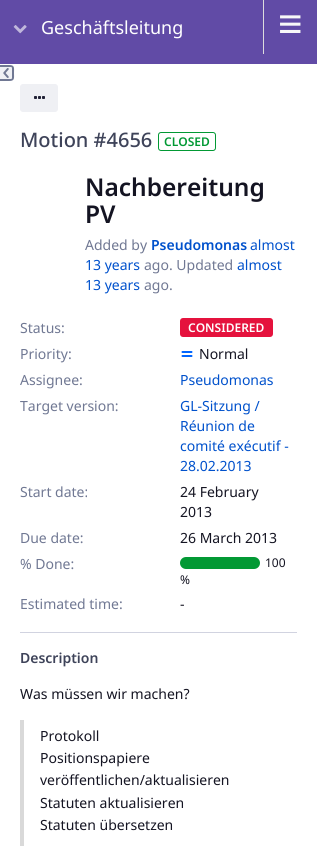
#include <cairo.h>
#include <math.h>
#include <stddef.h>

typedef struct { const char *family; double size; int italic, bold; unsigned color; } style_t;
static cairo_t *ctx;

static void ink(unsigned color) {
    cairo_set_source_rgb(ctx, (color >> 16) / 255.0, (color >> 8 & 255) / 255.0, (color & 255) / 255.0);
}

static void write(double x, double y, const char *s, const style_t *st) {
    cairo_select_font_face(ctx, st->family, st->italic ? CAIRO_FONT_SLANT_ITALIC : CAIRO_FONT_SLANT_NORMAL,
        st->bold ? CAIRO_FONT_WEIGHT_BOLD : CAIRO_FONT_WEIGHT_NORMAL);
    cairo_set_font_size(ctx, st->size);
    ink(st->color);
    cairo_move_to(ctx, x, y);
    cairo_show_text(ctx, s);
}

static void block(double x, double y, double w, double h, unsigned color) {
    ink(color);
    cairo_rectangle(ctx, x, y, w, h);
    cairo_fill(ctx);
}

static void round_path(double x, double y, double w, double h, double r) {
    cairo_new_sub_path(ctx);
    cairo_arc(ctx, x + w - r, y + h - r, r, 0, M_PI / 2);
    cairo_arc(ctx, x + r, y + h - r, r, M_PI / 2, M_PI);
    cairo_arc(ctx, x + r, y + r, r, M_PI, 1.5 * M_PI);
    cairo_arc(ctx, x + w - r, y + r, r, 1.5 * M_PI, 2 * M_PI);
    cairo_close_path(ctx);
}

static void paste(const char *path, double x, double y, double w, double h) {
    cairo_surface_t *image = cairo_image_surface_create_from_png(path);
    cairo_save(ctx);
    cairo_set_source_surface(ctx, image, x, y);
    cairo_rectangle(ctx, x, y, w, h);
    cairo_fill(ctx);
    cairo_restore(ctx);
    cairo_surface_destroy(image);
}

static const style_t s1 = {"Noto Sans", 18, 0, 0, 0xffffff};
static const style_t s2 = {"Liberation Sans", 42, 0, 0, 0xf8f8f8};
static const style_t s3 = {"Noto Sans Medium", 20, 0, 0, 0x3e4359};
static const style_t s4 = {"Noto Sans SemiBold", 12, 0, 0, 0x029934};
static const style_t s5 = {"Noto Sans SemiBold", 24.5, 0, 0, 0x141422};
static const style_t s6 = {"Noto Sans", 14, 0, 0, 0x707893};
static const style_t s7 = {"Noto Sans SemiBold", 14, 0, 0, 0x0051cc};
static const style_t s8 = {"Noto Sans", 14, 0, 0, 0x0051cc};
static const style_t s9 = {"Noto Sans SemiBold", 12, 0, 0, 0xffffff};
static const style_t s10 = {"Noto Sans", 14, 0, 0, 0x141422};
static const style_t s11 = {"Noto Sans", 12, 0, 0, 0x141422};
static const style_t s12 = {"Noto Sans SemiBold", 14, 0, 0, 0x3e4359};

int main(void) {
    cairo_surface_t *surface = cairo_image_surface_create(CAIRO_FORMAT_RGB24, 317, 846);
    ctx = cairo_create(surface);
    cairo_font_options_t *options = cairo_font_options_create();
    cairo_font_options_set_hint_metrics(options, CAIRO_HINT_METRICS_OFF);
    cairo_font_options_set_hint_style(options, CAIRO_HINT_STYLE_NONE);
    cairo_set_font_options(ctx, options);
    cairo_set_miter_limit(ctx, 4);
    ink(0xffffff);
    cairo_paint(ctx);
    block(0, 0, 317, 64, 0x614ba6);
    paste("pic1.png", 13, 25, 14, 9);
    write(41, 34, "Geschäftsleitung", &s1);
    block(263, 0, 1, 54, 0xdddddd);
    write(278, 38, "≡", &s2);
    ink(0xeff0f4);
    cairo_new_path(ctx);
    cairo_move_to(ctx, 0, 65);
    cairo_line_to(ctx, 11, 65);
    cairo_curve_to(ctx, 12.5, 65, 14, 66.5, 14, 68);
    cairo_line_to(ctx, 14, 78);
    cairo_curve_to(ctx, 14, 79.5, 12.5, 81, 11, 81);
    cairo_line_to(ctx, 0, 81);
    cairo_close_path(ctx);
    cairo_fill(ctx);
    paste("pic2.png", 3, 68, 6, 10);
    ink(0x707893);
    cairo_set_fill_rule(ctx, CAIRO_FILL_RULE_EVEN_ODD);
    cairo_new_path(ctx);
    cairo_move_to(ctx, 0, 65);
    cairo_line_to(ctx, 9, 65);
    cairo_curve_to(ctx, 15, 65, 14, 68, 14, 73);
    cairo_curve_to(ctx, 14, 78, 15, 81, 9, 81);
    cairo_line_to(ctx, 0, 81);
    cairo_close_path(ctx);
    cairo_move_to(ctx, 0, 67);
    cairo_line_to(ctx, 11, 67);
    cairo_curve_to(ctx, 11.5, 67, 12, 67.5, 12, 68);
    cairo_line_to(ctx, 12, 78);
    cairo_curve_to(ctx, 12, 78.5, 11.5, 79, 11, 79);
    cairo_line_to(ctx, 0, 79);
    cairo_close_path(ctx);
    cairo_fill(ctx);
    ink(0xeff0f4);
    round_path(20.5, 84.5, 37, 27, 2.5);
    cairo_fill_preserve(ctx);
    cairo_set_line_width(ctx, 1);
    cairo_stroke(ctx);
    paste("pic3.png", 34, 96, 11, 3);
    write(20, 147, "Motion #4656", &s3);
    round_path(158.5, 132.5, 57, 18, 2.5);
    ink(0x029934);
    cairo_stroke(ctx);
    write(164, 146, "CLOSED", &s4);
    write(85, 196, "Nachbereitung", &s5);
    write(85, 223, "PV", &s5);
    write(85, 250, "Added by", &s6);
    write(151, 250, "Pseudomonas", &s7);
    write(250, 250, "almost", &s8);
    write(85, 270, "13 years", &s8);
    write(144, 270, "ago. Updated", &s6);
    write(237, 270, "almost", &s8);
    write(85, 290, "13 years", &s8);
    write(144, 290, "ago.", &s6);
    write(20, 333, "Status:", &s6);
    ink(0xe5123d);
    round_path(180, 318, 93, 19, 3);
    cairo_fill(ctx);
    write(188, 332, "CONSIDERED", &s9);
    write(20, 359, "Priority:", &s6);
    paste("pic4.png", 181, 351, 12, 6);
    write(199, 359, "Normal", &s10);
    write(20, 385, "Assignee:", &s6);
    write(180, 385, "Pseudomonas", &s8);
    write(20, 411, "Target version:", &s6);
    write(180, 411, "GL-Sitzung /", &s8);
    write(180, 431, "Réunion de", &s8);
    write(180, 451, "comité exécutif -", &s8);
    write(180, 471, "28.02.2013", &s8);
    write(20, 497, "Start date:", &s6);
    write(180, 497, "24 February", &s10);
    write(180, 517, "2013", &s10);
    write(20, 543, "Due date:", &s6);
    write(180, 543, "26 March 2013", &s10);
    write(20, 569, "% Done:", &s6);
    ink(0x029934);
    round_path(180, 557, 80, 12, 6);
    cairo_fill(ctx);
    write(265, 567, "100", &s11);
    write(180, 584, "%", &s11);
    write(20, 609, "Estimated time:", &s6);
    write(180, 609, "-", &s10);
    block(20, 632, 277, 1, 0xd1d3e0);
    write(20, 663, "Description", &s12);
    write(20, 699, "Was müssen wir machen?", &s10);
    block(20, 720, 4, 126, 0xd9d9d9);
    write(40, 741, "Protokoll", &s10);
    write(40, 763, "Positionspapiere", &s10);
    write(40, 785, "veröffentlichen/aktualisieren", &s10);
    write(40, 808, "Statuten aktualisieren", &s10);
    write(40, 830, "Statuten übersetzen", &s10);
    cairo_surface_write_to_png(surface, "screenshot.png");
    cairo_font_options_destroy(options);
    cairo_destroy(ctx);
    cairo_surface_destroy(surface);
    return 0;
}
